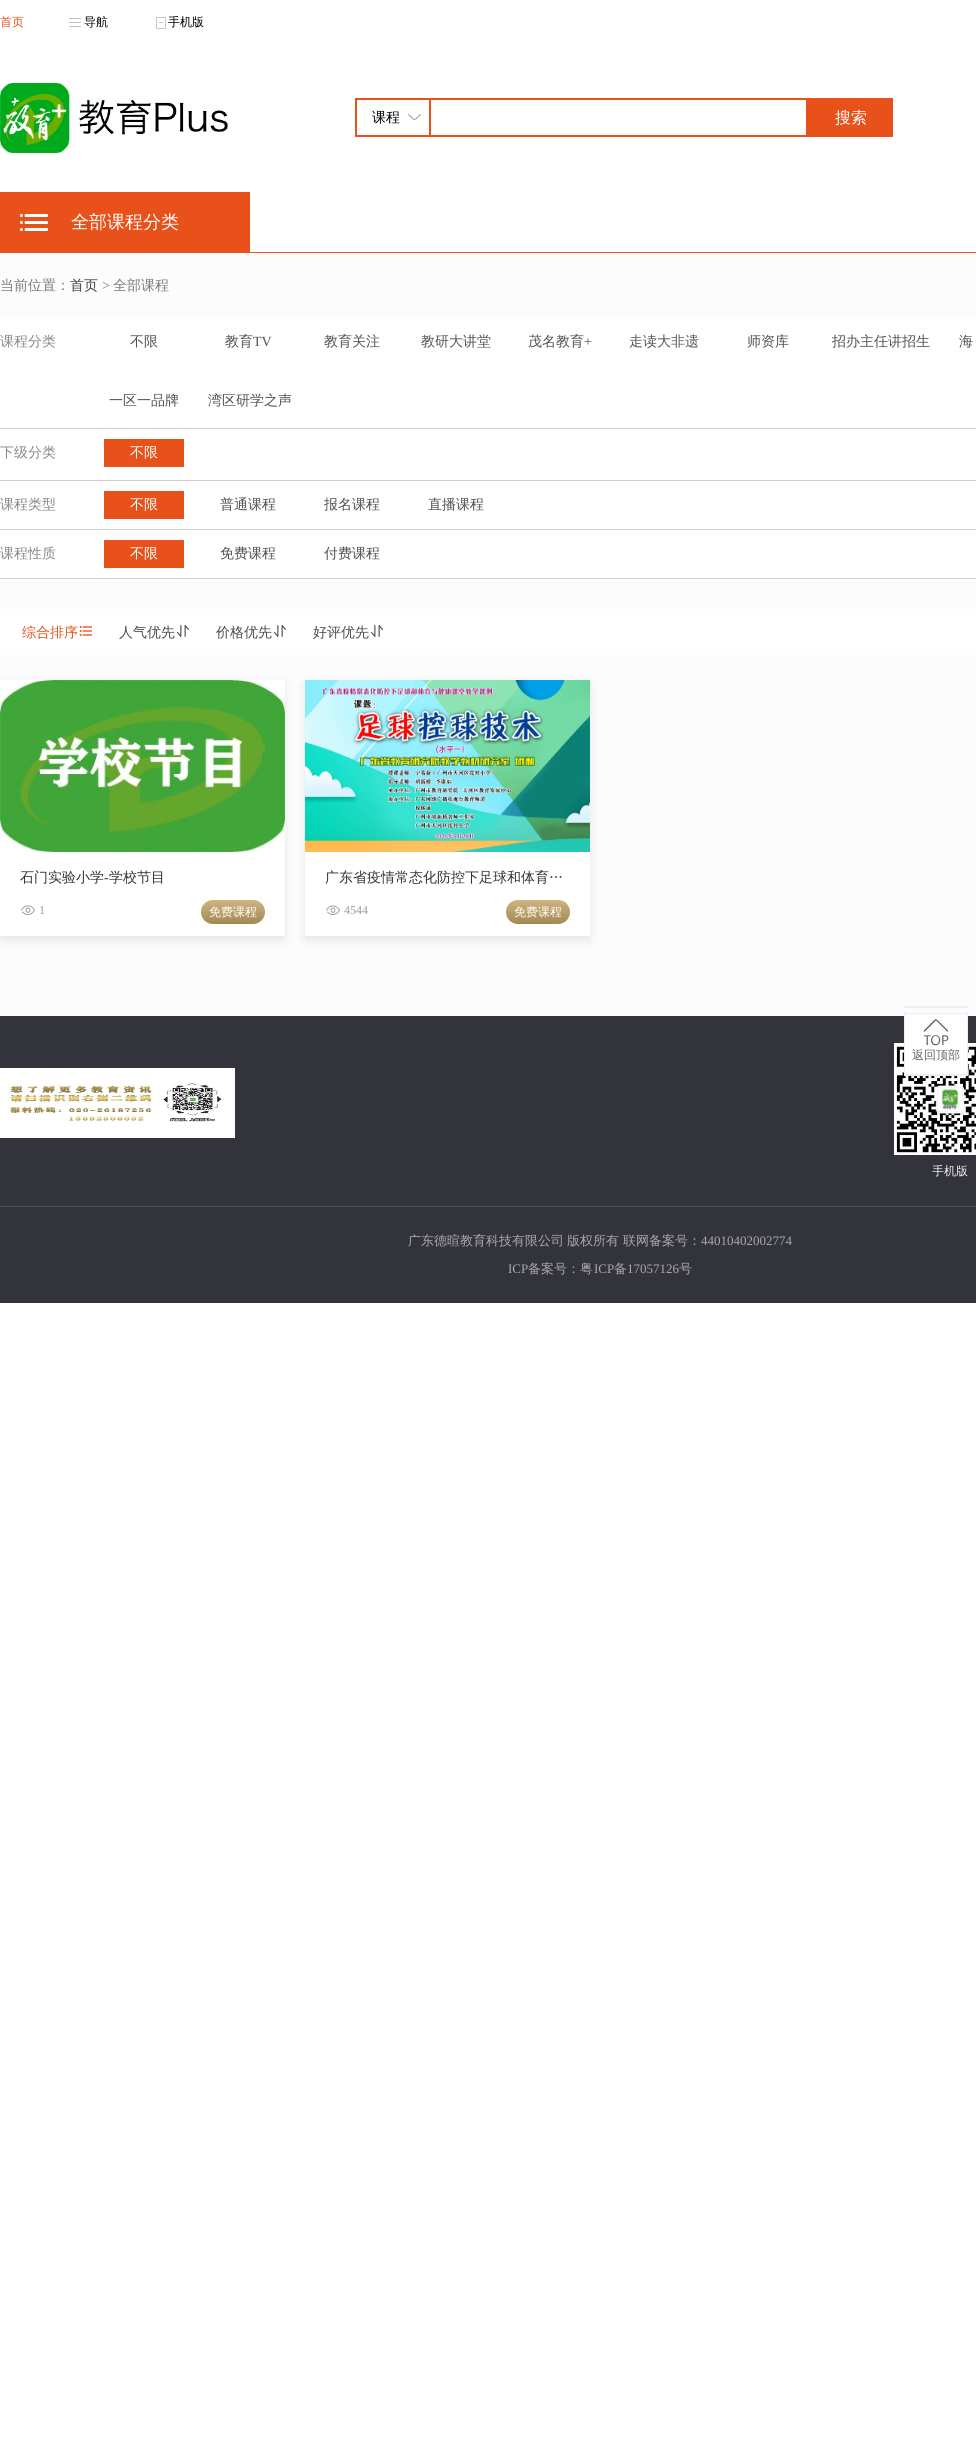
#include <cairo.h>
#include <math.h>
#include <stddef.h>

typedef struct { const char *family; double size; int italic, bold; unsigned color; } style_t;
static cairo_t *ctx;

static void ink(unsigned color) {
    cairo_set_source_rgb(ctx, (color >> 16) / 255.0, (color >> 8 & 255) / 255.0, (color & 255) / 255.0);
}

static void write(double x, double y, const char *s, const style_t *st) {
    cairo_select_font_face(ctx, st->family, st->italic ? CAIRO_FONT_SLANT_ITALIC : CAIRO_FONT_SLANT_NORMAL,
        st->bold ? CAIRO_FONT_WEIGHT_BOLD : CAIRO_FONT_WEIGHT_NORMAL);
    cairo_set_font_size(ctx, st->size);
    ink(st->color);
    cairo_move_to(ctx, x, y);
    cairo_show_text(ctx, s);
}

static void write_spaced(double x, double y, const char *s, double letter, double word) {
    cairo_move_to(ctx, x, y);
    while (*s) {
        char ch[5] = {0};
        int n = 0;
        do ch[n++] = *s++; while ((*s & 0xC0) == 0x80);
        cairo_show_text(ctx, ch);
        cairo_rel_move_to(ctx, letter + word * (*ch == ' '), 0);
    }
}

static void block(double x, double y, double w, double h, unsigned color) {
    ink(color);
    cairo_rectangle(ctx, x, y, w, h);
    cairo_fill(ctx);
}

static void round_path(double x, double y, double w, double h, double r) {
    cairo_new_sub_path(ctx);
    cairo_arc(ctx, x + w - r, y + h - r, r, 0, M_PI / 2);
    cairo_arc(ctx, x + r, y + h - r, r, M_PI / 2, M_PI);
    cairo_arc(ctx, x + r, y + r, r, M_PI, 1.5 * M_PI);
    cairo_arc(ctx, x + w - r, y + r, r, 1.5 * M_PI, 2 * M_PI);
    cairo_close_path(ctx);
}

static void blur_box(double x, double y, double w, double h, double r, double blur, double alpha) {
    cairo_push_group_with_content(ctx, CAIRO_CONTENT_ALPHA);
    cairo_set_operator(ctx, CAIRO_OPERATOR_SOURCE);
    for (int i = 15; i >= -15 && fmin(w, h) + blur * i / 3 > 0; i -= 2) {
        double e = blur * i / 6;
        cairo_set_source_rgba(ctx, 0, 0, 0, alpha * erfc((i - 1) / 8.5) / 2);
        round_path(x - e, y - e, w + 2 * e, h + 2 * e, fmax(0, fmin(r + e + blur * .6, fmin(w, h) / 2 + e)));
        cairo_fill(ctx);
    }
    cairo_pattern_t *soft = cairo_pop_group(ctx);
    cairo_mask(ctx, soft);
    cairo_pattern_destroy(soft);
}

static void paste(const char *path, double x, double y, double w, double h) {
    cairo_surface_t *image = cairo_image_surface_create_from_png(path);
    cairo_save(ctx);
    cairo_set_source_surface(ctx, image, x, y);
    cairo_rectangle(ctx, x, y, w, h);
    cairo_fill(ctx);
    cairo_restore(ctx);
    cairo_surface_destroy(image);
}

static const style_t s1 = {"WenQuanYi Zen Hei Medium", 12, 0, 0, 0xe9511b};
static const style_t s2 = {"WenQuanYi Zen Hei Medium", 12, 0, 0, 0x000000};
static const style_t s3 = {"WenQuanYi Zen Hei Medium", 14, 0, 0, 0x000000};
static const style_t s4 = {"WenQuanYi Zen Hei Medium", 16, 0, 0, 0xffffff};
static const style_t s5 = {"WenQuanYi Zen Hei Medium", 18, 0, 0, 0xffffff};
static const style_t s6 = {"WenQuanYi Zen Hei Medium", 14, 0, 0, 0x7a7a7a};
static const style_t s7 = {"WenQuanYi Zen Hei Medium", 14, 0, 0, 0x414141};
static const style_t s8 = {"Liberation Serif", 14, 0, 0, 0x7a7a7a};
static const style_t s9 = {"WenQuanYi Zen Hei Medium", 14, 0, 0, 0x888888};
static const style_t s10 = {"WenQuanYi Zen Hei Medium", 14, 0, 0, 0x525252};
static const style_t s11 = {"Liberation Serif", 14, 0, 0, 0x525252};
static const style_t s12 = {"WenQuanYi Zen Hei Medium", 14, 0, 0, 0xffffff};
static const style_t s13 = {"WenQuanYi Zen Hei Medium", 14, 0, 0, 0xe9511b};
static const style_t s14 = {"WenQuanYi Zen Hei Medium", 14, 0, 0, 0x4c4c4c};
static const style_t s15 = {"WenQuanYi Zen Hei Medium", 14, 0, 0, 0x333333};
static const style_t s16 = {"Liberation Serif", 14, 0, 0, 0x333333};
static const style_t s17 = {"Liberation Serif", 12, 0, 0, 0x999999};
static const style_t s18 = {"WenQuanYi Zen Hei Medium", 12, 0, 0, 0xffffff};
static const style_t s19 = {"WenQuanYi Zen Hei Medium", 12, 0, 0, 0x666666};
static const style_t s20 = {"WenQuanYi Zen Hei Medium", 12, 0, 0, 0xefefef};
static const style_t s21 = {"WenQuanYi Zen Hei Medium", 13, 0, 0, 0xa9a9a9};
static const style_t s22 = {"Liberation Serif", 13, 0, 0, 0xa9a9a9};

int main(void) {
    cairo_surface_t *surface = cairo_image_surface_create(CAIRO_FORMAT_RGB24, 976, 2460);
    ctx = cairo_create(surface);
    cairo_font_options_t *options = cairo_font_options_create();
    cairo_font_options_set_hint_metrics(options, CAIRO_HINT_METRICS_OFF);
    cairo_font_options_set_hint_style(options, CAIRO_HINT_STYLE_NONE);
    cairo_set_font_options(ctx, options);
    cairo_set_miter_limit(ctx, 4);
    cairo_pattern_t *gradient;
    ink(0xffffff);
    cairo_paint(ctx);
    write(0, 26, "首页", &s1);
    paste("pic1.png", 69, 18, 12, 9);
    write(84, 26, "导航", &s2);
    paste("pic2.png", 156, 17, 10, 12);
    write(168, 26, "手机版", &s2);
    paste("pic3.png", 0, 83, 228, 70);
    block(431, 98, 377, 2, 0xe9511b);
    block(806, 98, 87, 39, 0xe9511b);
    block(431, 135, 377, 2, 0xe9511b);
    paste("pic4.png", 408, 114, 13, 6);
    cairo_rectangle(ctx, 356, 99, 74, 37);
    cairo_stroke(ctx);
    write(372, 122, "课程", &s3);
    write(835, 123, "搜索", &s4);
    block(0, 252, 976, 1, 0xe9511b);
    block(0, 192, 250, 60, 0xe9511b);
    paste("pic5.png", 20, 214, 28, 17);
    write(71, 228, "全部课程分类", &s5);
    block(0, 253, 976, 763, 0xfcfcfc);
    write(0, 290, "当前位置：", &s6);
    write(70, 290, "首页", &s7);
    write(102, 290, ">", &s8);
    write(113, 290, "全部课程", &s6);
    block(0, 318, 976, 260, 0xffffff);
    write(0, 346, "课程分类", &s9);
    write(130, 346, "不限", &s10);
    write(225, 346, "教育", &s10);
    write(253, 346, "TV", &s11);
    write(324, 346, "教育关注", &s10);
    write(421, 346, "教研大讲堂", &s10);
    write(528, 346, "茂名教育", &s10);
    write(584, 346, "+", &s11);
    write(629, 346, "走读大非遗", &s10);
    write(747, 346, "师资库", &s10);
    write(832, 346, "招办主任讲招生", &s10);
    write(959, 346, "海", &s10);
    write(109, 405, "一区一品牌", &s10);
    write(208, 405, "湾区研学之声", &s10);
    block(0, 428, 976, 1, 0xd2d2d2);
    write(0, 457, "下级分类", &s9);
    block(104, 439, 80, 28, 0xe9511b);
    write(130, 457, "不限", &s12);
    block(0, 480, 976, 1, 0xd2d2d2);
    write(0, 509, "课程类型", &s9);
    block(104, 491, 80, 28, 0xe9511b);
    write(130, 509, "不限", &s12);
    write(220, 509, "普通课程", &s10);
    write(324, 509, "报名课程", &s10);
    write(428, 509, "直播课程", &s10);
    block(0, 529, 976, 1, 0xd2d2d2);
    write(0, 558, "课程性质", &s9);
    block(104, 540, 80, 28, 0xe9511b);
    write(130, 558, "不限", &s12);
    write(220, 558, "免费课程", &s10);
    write(324, 558, "付费课程", &s10);
    block(0, 578, 976, 1, 0xd2d2d2);
    block(0, 609, 976, 46, 0xffffff);
    write(22, 637, "综合排序", &s13);
    paste("pic6.png", 79, 626, 13, 10);
    write(119, 637, "人气优先", &s14);
    paste("pic7.png", 177, 625, 12, 12);
    write(216, 637, "价格优先", &s14);
    paste("pic7.png", 274, 625, 12, 12);
    write(313, 637, "好评优先", &s14);
    paste("pic7.png", 371, 625, 12, 12);
    ink(0x141414);
    blur_box(0, 684, 285, 256, 0, 5, 0.1);
    paste("pic8.png", 0, 680, 285, 172);
    block(0, 852, 285, 84, 0xffffff);
    write(20, 882, "石门实验小学", &s15);
    write(104, 882, "-", &s16);
    write(109, 882, "学校节目", &s15);
    paste("pic9.png", 21, 905, 14, 10);
    write(39, 914, "1", &s17);
    ink(0xd7b262);
    round_path(201, 900, 64, 24, 12);
    cairo_fill(ctx);
    gradient = cairo_pattern_create_linear(233, 924, 233, 900);
    cairo_pattern_add_color_stop_rgba(gradient, 0, 0.216, 0.216, 0.216, 0.33);
    cairo_pattern_add_color_stop_rgba(gradient, 1, 0.737, 0.737, 0.737, 0.33);
    cairo_set_source(ctx, gradient);
    cairo_pattern_destroy(gradient);
    round_path(201, 900, 64, 24, 12);
    cairo_fill(ctx);
    write(209, 916, "免费课程", &s18);
    ink(0x141414);
    blur_box(305, 684, 285, 256, 0, 5, 0.1);
    paste("pic10.png", 305, 680, 285, 172);
    block(305, 852, 285, 84, 0xffffff);
    write(325, 882, "广东省疫情常态化防控下足球和体育…", &s15);
    paste("pic9.png", 326, 905, 14, 10);
    write(344, 914, "4544", &s17);
    ink(0xd7b262);
    round_path(506, 900, 64, 24, 12);
    cairo_fill(ctx);
    gradient = cairo_pattern_create_linear(538, 924, 538, 900);
    cairo_pattern_add_color_stop_rgba(gradient, 0, 0.216, 0.216, 0.216, 0.33);
    cairo_pattern_add_color_stop_rgba(gradient, 1, 0.737, 0.737, 0.737, 0.33);
    cairo_set_source(ctx, gradient);
    cairo_pattern_destroy(gradient);
    round_path(506, 900, 64, 24, 12);
    cairo_fill(ctx);
    write(514, 916, "免费课程", &s18);
    block(904, 1006, 64, 2, 0xeeeeee);
    block(0, 1016, 976, 190, 0x32333b);
    paste("pic13.png", 894, 1043, 82, 112);
    block(905, 1014, 62, 60, 0xffffff);
    cairo_rectangle(ctx, 904.5, 1013.5, 63, 62);
    ink(0xeeeeee);
    cairo_set_line_width(ctx, 1);
    cairo_stroke(ctx);
    block(905, 1074, 62, 1, 0xeeeeee);
    paste("pic11.png", 923, 1019, 26, 27);
    write(912, 1059, "返回顶部", &s19);
    paste("pic12.png", 0, 1068, 235, 70);
    write(932, 1175, "手机版", &s20);
    block(0, 1206, 976, 1, 0x505050);
    block(0, 1207, 976, 96, 0x32333b);
    cairo_set_font_size(ctx, 13);
    ink(0xa9a9a9);
    write_spaced(408, 1245, "广东德暄教育科技有限公司 版权所有", 0, -1);
    write(623, 1245, "联网备案号：", &s21);
    write(701, 1245, "44010402002774", &s22);
    write(508, 1273, "ICP", &s22);
    write(528, 1273, "备案号：粤", &s21);
    write(594, 1273, "ICP", &s22);
    write(614, 1273, "备", &s21);
    write(627, 1273, "17057126", &s22);
    write(679, 1273, "号", &s21);
    cairo_surface_write_to_png(surface, "screenshot.png");
    cairo_font_options_destroy(options);
    cairo_destroy(ctx);
    cairo_surface_destroy(surface);
    return 0;
}
